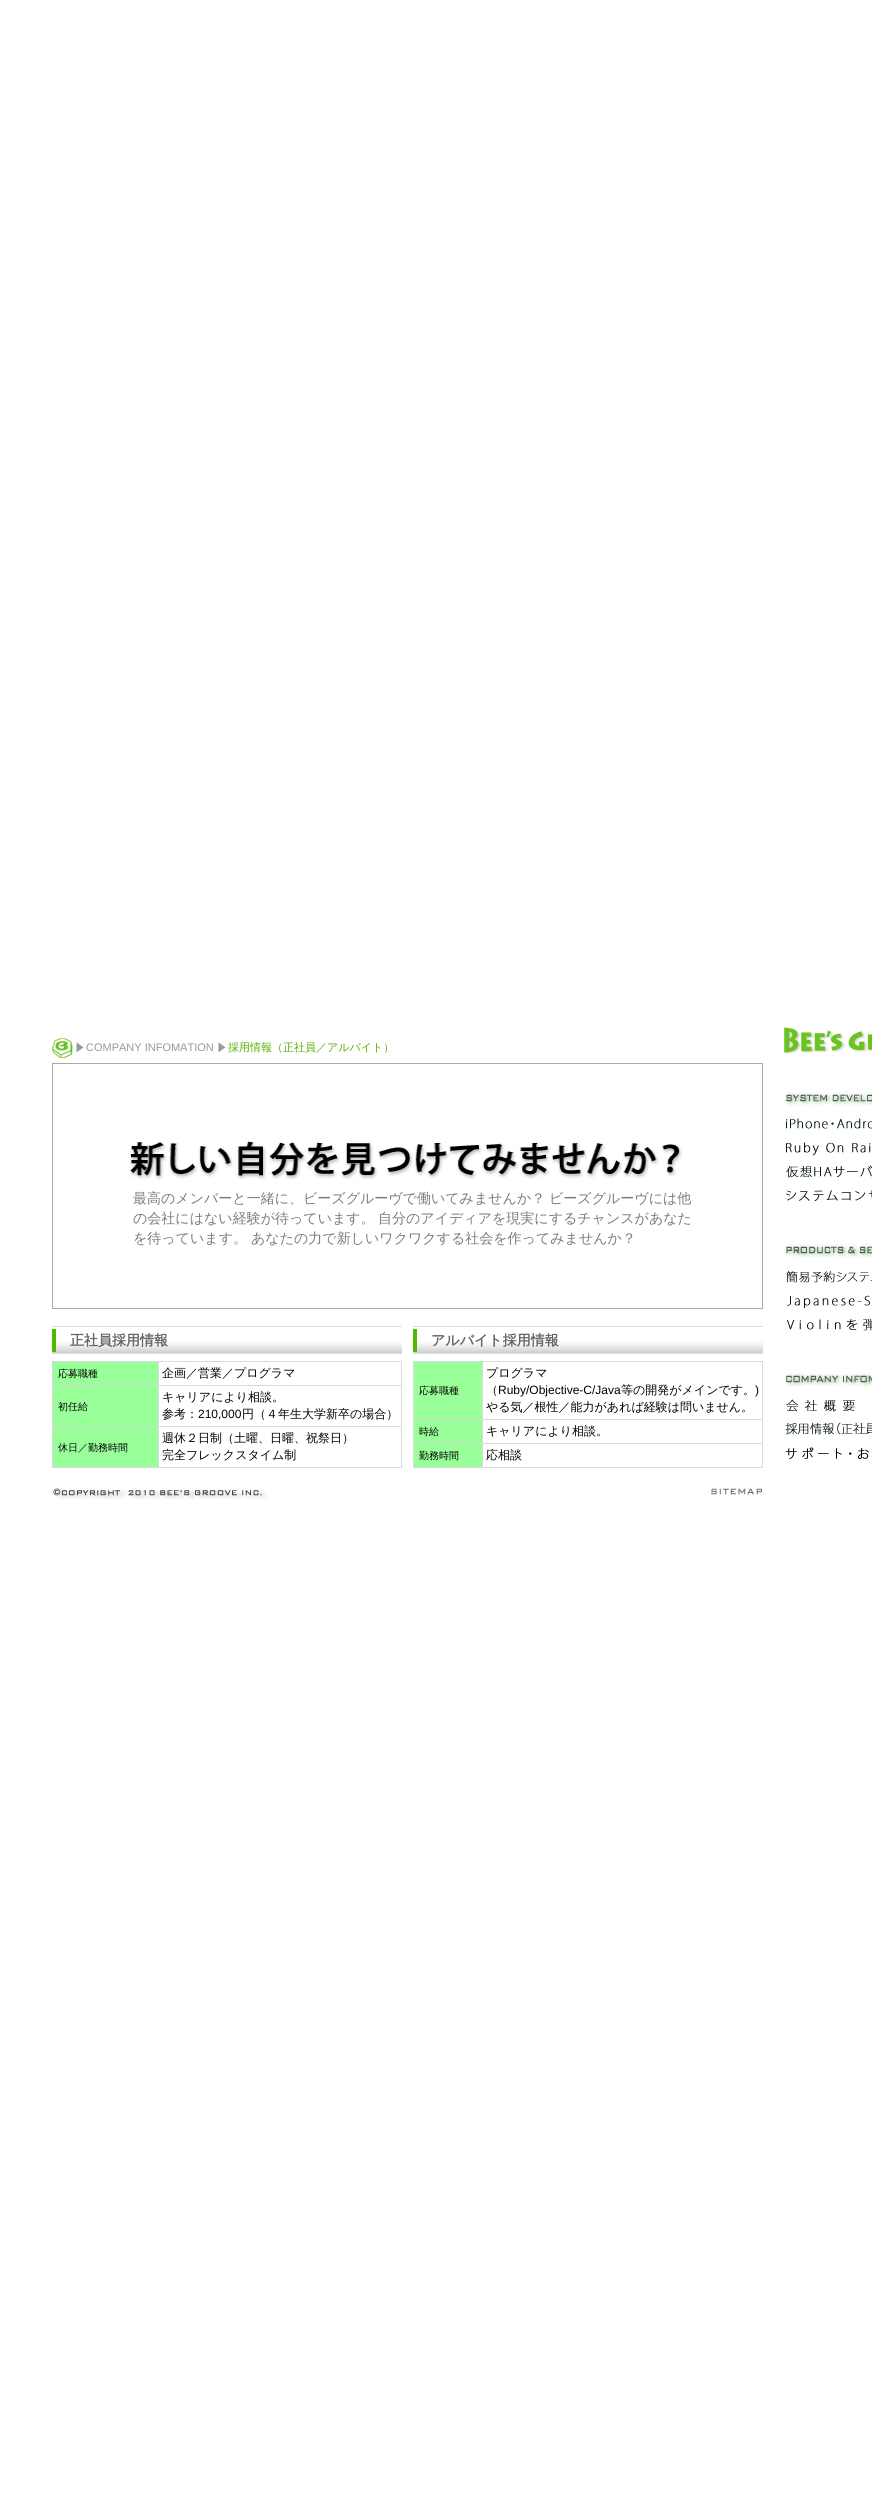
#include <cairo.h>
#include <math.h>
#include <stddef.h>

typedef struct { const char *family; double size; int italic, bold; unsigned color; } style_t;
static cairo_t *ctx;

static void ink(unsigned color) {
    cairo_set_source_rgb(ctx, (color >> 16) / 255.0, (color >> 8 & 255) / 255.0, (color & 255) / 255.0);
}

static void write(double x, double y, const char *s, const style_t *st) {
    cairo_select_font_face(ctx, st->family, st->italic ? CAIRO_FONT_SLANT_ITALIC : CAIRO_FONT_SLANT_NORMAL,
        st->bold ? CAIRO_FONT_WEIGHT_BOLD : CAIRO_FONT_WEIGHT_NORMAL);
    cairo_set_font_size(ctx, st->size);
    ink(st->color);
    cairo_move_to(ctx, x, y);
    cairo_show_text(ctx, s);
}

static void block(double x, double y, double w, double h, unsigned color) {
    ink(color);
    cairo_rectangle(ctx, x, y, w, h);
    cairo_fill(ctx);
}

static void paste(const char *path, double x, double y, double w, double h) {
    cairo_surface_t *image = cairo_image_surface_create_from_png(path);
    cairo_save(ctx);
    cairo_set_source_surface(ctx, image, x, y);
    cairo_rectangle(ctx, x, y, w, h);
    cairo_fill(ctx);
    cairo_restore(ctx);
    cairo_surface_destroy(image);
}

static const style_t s1 = {"Liberation Sans", 11, 0, 0, 0x999999};
static const style_t s2 = {"WenQuanYi Zen Hei Medium", 11, 0, 0, 0x53ae02};
static const style_t s3 = {"WenQuanYi Zen Hei Medium", 14, 0, 0, 0x797c80};
static const style_t s4 = {"WenQuanYi Zen Hei", 14, 0, 1, 0x666666};
static const style_t s5 = {"WenQuanYi Zen Hei Medium", 10, 0, 0, 0x000000};
static const style_t s6 = {"WenQuanYi Zen Hei Medium", 12, 0, 0, 0x000000};
static const style_t s7 = {"Liberation Sans", 12, 0, 0, 0x000000};

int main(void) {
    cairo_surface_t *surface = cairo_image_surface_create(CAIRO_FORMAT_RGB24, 872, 2506);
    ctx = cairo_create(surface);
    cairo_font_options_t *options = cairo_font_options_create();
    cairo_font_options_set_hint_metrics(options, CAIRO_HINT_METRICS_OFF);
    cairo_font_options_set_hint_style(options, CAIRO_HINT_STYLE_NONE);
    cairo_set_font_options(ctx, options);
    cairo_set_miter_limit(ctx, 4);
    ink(0xffffff);
    cairo_paint(ctx);
    paste("pic1.png", 52, 1038, 32, 20);
    write(86, 1051, "COMPANY INFOMATION", &s1);
    paste("pic2.png", 218, 1042, 8, 11);
    write(228, 1051, "採用情報（正社員／アルバイト）", &s2);
    paste("pic3.png", 784, 1027, 88, 27);
    paste("pic4.png", 785, 1092, 87, 295);
    paste("pic5.png", 786, 1118, 86, 11);
    paste("pic6.png", 786, 1142, 85, 14);
    paste("pic7.png", 786, 1165, 86, 13);
    paste("pic8.png", 786, 1190, 86, 11);
    paste("pic9.png", 786, 1271, 86, 12);
    paste("pic10.png", 787, 1295, 83, 13);
    paste("pic11.png", 787, 1319, 85, 12);
    paste("pic12.png", 786, 1399, 69, 13);
    paste("pic13.png", 785, 1423, 87, 12);
    paste("pic14.png", 785, 1447, 84, 12);
    cairo_rectangle(ctx, 52.5, 1063.5, 710, 245);
    ink(0xaaaaaa);
    cairo_set_line_width(ctx, 1);
    cairo_stroke(ctx);
    paste("pic15.png", 129, 1141, 554, 39);
    write(133, 1203, "最高のメンバーと一緒に、ビーズグルーヴで働いてみませんか？", &s3);
    write(549, 1203, "ビーズグルーヴには他", &s3);
    write(133, 1223, "の会社にはない経験が待っています。", &s3);
    write(378, 1223, "自分のアイディアを現実にするチャンスがあなた", &s3);
    write(133, 1243, "を待っています。", &s3);
    write(251, 1243, "あなたの力で新しいワクワクする社会を作ってみませんか？", &s3);
    paste("pic16.png", 52, 1326, 350, 28);
    write(70, 1345, "正社員採用情報", &s4);
    block(52, 1361, 350, 1, 0xd8dbdd);
    block(401, 1361, 1, 107, 0xd8dbdd);
    block(52, 1467, 350, 1, 0xd8dbdd);
    block(52, 1361, 1, 107, 0xd8dbdd);
    block(53, 1362, 105, 23, 0x99ff99);
    write(58, 1377, "応募職種", &s5);
    block(158, 1385, 244, 1, 0xd8dbdd);
    block(158, 1426, 244, 1, 0xd8dbdd);
    block(158, 1426, 1, 42, 0xd8dbdd);
    block(52, 1426, 107, 1, 0xd8dbdd);
    block(158, 1385, 1, 42, 0xd8dbdd);
    block(52, 1385, 107, 1, 0xd8dbdd);
    block(158, 1361, 1, 25, 0xd8dbdd);
    write(162, 1377, "企画／営業／プログラマ", &s6);
    block(53, 1386, 105, 40, 0x99ff99);
    write(58, 1410, "初任給", &s5);
    write(162, 1401, "キャリアにより相談。", &s6);
    write(162, 1418, "参考：", &s6);
    write(198, 1418, "210,000", &s7);
    write(242, 1418, "円（４年生大学新卒の場合）", &s6);
    block(53, 1427, 105, 40, 0x99ff99);
    write(58, 1451, "休日／勤務時間", &s5);
    write(162, 1442, "週休２日制（土曜、日曜、祝祭日）", &s6);
    write(162, 1459, "完全フレックスタイム制", &s6);
    paste("pic16.png", 413, 1326, 350, 28);
    write(431, 1345, "アルバイト採用情報", &s4);
    block(413, 1361, 350, 1, 0xd8dbdd);
    block(762, 1361, 1, 107, 0xd8dbdd);
    block(413, 1467, 350, 1, 0xd8dbdd);
    block(413, 1361, 1, 107, 0xd8dbdd);
    block(414, 1362, 68, 57, 0x99ff99);
    write(419, 1394, "応募職種", &s5);
    block(482, 1419, 281, 1, 0xd8dbdd);
    block(482, 1443, 281, 1, 0xd8dbdd);
    block(482, 1443, 1, 25, 0xd8dbdd);
    block(413, 1443, 70, 1, 0xd8dbdd);
    block(482, 1419, 1, 25, 0xd8dbdd);
    block(413, 1419, 70, 1, 0xd8dbdd);
    block(482, 1361, 1, 59, 0xd8dbdd);
    write(486, 1377, "プログラマ", &s6);
    write(486, 1394, "（", &s6);
    write(498, 1394, "Ruby/Objective-C/Java", &s7);
    write(621, 1394, "等の開発がメインです。", &s6);
    write(755, 1394, ")", &s7);
    write(486, 1411, "やる気／根性／能力があれば経験は問いません。", &s6);
    block(414, 1420, 68, 23, 0x99ff99);
    write(419, 1435, "時給", &s5);
    write(486, 1435, "キャリアにより相談。", &s6);
    block(414, 1444, 68, 23, 0x99ff99);
    write(419, 1459, "勤務時間", &s5);
    write(486, 1459, "応相談", &s6);
    paste("pic17.png", 53, 1488, 214, 11);
    paste("pic18.png", 711, 1488, 51, 7);
    cairo_surface_write_to_png(surface, "screenshot.png");
    cairo_font_options_destroy(options);
    cairo_destroy(ctx);
    cairo_surface_destroy(surface);
    return 0;
}
